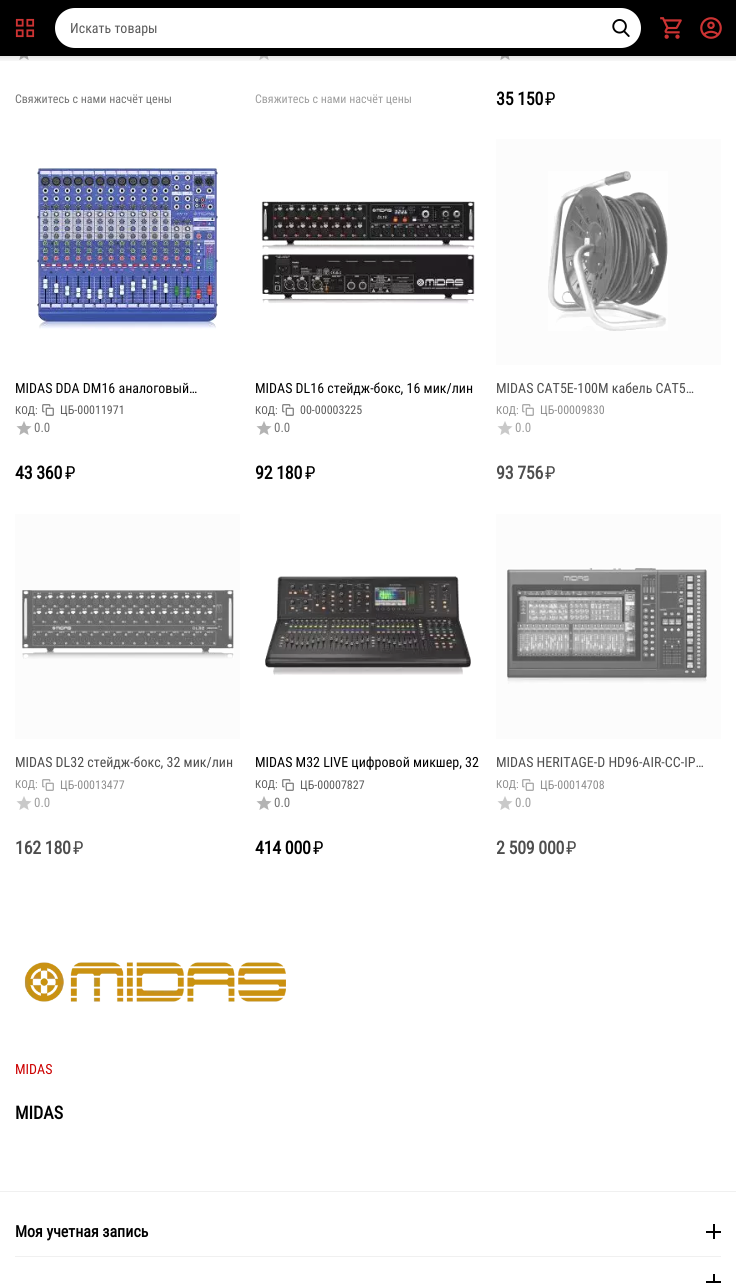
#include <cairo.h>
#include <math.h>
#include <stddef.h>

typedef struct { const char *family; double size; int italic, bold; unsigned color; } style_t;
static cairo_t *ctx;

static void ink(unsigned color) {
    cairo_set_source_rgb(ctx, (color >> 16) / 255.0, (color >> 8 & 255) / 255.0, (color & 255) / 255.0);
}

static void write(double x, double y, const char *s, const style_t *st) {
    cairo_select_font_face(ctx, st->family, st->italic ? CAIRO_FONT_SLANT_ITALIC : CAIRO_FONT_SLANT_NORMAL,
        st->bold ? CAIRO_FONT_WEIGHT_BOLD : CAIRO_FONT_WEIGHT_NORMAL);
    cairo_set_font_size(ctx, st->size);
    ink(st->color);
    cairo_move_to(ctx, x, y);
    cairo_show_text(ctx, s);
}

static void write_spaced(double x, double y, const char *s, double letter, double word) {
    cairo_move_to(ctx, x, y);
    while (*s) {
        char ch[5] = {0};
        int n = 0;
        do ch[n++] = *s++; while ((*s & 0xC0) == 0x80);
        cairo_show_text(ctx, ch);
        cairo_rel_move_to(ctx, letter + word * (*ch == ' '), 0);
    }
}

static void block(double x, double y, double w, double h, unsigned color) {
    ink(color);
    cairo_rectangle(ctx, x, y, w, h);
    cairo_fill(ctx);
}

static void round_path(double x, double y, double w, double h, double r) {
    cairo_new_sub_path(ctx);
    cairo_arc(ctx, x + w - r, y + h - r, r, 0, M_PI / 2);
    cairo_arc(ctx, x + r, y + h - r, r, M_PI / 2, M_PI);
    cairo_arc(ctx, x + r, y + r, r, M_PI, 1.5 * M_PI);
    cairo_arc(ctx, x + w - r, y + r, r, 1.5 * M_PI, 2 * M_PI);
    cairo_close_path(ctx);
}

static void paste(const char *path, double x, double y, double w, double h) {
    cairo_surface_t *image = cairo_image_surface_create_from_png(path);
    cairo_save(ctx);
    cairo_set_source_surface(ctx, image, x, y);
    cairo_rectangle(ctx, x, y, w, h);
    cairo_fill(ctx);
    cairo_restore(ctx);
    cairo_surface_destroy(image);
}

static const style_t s1 = {"Roboto Condensed", 14, 0, 0, 0x595959};
static const style_t s2 = {"Roboto Condensed", 12, 0, 0, 0x737373};
static const style_t s3 = {"Roboto Condensed", 12, 0, 0, 0x9e9e9e};
static const style_t s4 = {"Roboto Condensed", 14, 0, 0, 0x000000};
static const style_t s5 = {"Roboto Condensed", 11, 0, 0, 0x595959};
static const style_t s6 = {"Roboto Condensed", 12, 0, 0, 0x595959};
static const style_t s7 = {"Roboto Condensed", 13, 0, 0, 0x737373};
static const style_t s8 = {"Roboto Condensed", 14, 0, 0, 0x4d4d4d};
static const style_t s9 = {"Roboto Condensed", 11, 0, 0, 0x8c8c8c};
static const style_t s10 = {"Roboto Condensed", 12, 0, 0, 0x8c8c8c};
static const style_t s11 = {"Roboto Condensed", 13, 0, 0, 0x9e9e9e};
static const style_t s12 = {"Roboto Condensed", 14, 0, 0, 0xcc0000};
static const style_t s13 = {"Roboto Condensed", 18, 0, 1, 0x000000};
static const style_t s14 = {"Roboto Condensed", 16, 0, 1, 0x000000};

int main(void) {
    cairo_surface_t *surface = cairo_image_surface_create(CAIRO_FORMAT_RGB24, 744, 1283);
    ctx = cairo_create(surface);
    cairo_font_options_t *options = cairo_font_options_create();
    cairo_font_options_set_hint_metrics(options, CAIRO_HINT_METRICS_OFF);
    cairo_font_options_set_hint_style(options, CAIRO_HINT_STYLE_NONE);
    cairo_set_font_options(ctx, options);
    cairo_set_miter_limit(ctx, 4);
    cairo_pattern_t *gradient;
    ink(0xffffff);
    cairo_paint(ctx);
    block(0, 0, 736, 56, 0x000000);
    paste("pic1.png", 15, 18, 20, 20);
    ink(0xffffff);
    round_path(55, 8, 586, 40, 20);
    cairo_fill(ctx);
    write(70, 33, "Искать товары", &s1);
    paste("pic2.png", 612, 19, 18, 18);
    paste("pic3.png", 660, 17, 22, 22);
    paste("pic4.png", 700, 17, 22, 22);
    paste("pic5.png", 19, 56, 10, 4);
    paste("pic6.png", 259, 56, 10, 4);
    paste("pic5.png", 500, 56, 10, 4);
    gradient = cairo_pattern_create_linear(368, 56, 368, 63);
    cairo_pattern_add_color_stop_rgba(gradient, 0, 0, 0, 0, 0.1);
    cairo_pattern_add_color_stop_rgba(gradient, 1, 0, 0, 0, 0);
    cairo_set_source(ctx, gradient);
    cairo_pattern_destroy(gradient);
    cairo_rectangle(ctx, 0, 56, 736, 5);
    cairo_fill(ctx);
    write(15, 103, "Свяжитесь с нами насчёт цены", &s2);
    write(255, 103, "Свяжитесь с нами насчёт цены", &s3);
    cairo_select_font_face(ctx, "Roboto Condensed", CAIRO_FONT_SLANT_NORMAL, CAIRO_FONT_WEIGHT_BOLD);
    cairo_set_font_size(ctx, 18);
    ink(0x000000);
    write_spaced(496, 105, "35 150", -0.25, 0);
    cairo_select_font_face(ctx, "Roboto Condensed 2", CAIRO_FONT_SLANT_NORMAL, CAIRO_FONT_WEIGHT_NORMAL);
    write_spaced(545, 105, "₽", -0.25, 0);
    paste("pic7.png", 15, 139, 225, 226);
    write(15, 393, "MIDAS DDA DM16 аналоговый…", &s4);
    write(15, 414, "КОД:", &s5);
    paste("pic8.png", 42, 404, 12, 12);
    write(60, 414, "ЦБ-00011971", &s6);
    paste("pic9.png", 16, 421, 16, 14);
    write(34, 432, "0.0", &s7);
    cairo_select_font_face(ctx, "Roboto Condensed", CAIRO_FONT_SLANT_NORMAL, CAIRO_FONT_WEIGHT_BOLD);
    cairo_set_font_size(ctx, 18);
    ink(0x000000);
    write_spaced(15, 479, "43 360", -0.25, 0);
    cairo_select_font_face(ctx, "Roboto Condensed 2", CAIRO_FONT_SLANT_NORMAL, CAIRO_FONT_WEIGHT_NORMAL);
    write_spaced(65, 479, "₽", -0.25, 0);
    paste("pic10.png", 255, 139, 226, 226);
    write(255, 393, "MIDAS DL16 стейдж-бокс, 16 мик/лин", &s4);
    write(255, 414, "КОД:", &s5);
    paste("pic8.png", 282, 404, 12, 12);
    write(300, 414, "00-00003225", &s6);
    paste("pic9.png", 256, 421, 16, 14);
    write(274, 432, "0.0", &s7);
    cairo_select_font_face(ctx, "Roboto Condensed", CAIRO_FONT_SLANT_NORMAL, CAIRO_FONT_WEIGHT_BOLD);
    cairo_set_font_size(ctx, 18);
    ink(0x000000);
    write_spaced(255, 479, "92 180", -0.25, 0);
    cairo_select_font_face(ctx, "Roboto Condensed 2", CAIRO_FONT_SLANT_NORMAL, CAIRO_FONT_WEIGHT_NORMAL);
    write_spaced(305, 479, "₽", -0.25, 0);
    block(496, 139, 225, 226, 0xfcfcfc);
    paste("pic11.png", 548, 171, 120, 160);
    write(496, 393, "MIDAS CAT5E-100M кабель CAT5…", &s8);
    write(496, 414, "КОД:", &s9);
    paste("pic12.png", 522, 404, 12, 12);
    write(540, 414, "ЦБ-00009830", &s10);
    paste("pic13.png", 497, 421, 16, 14);
    write(515, 432, "0.0", &s11);
    cairo_select_font_face(ctx, "Roboto Condensed", CAIRO_FONT_SLANT_NORMAL, CAIRO_FONT_WEIGHT_BOLD);
    cairo_set_font_size(ctx, 18);
    ink(0x4d4d4d);
    write_spaced(496, 479, "93 756", -0.25, 0);
    cairo_select_font_face(ctx, "Roboto Condensed 2", CAIRO_FONT_SLANT_NORMAL, CAIRO_FONT_WEIGHT_NORMAL);
    write_spaced(545, 479, "₽", -0.25, 0);
    block(15, 514, 225, 225, 0xfcfcfc);
    paste("pic14.png", 22, 590, 212, 69);
    write(15, 767, "MIDAS DL32 стейдж-бокс, 32 мик/лин", &s8);
    write(15, 788, "КОД:", &s9);
    paste("pic12.png", 42, 779, 12, 12);
    write(60, 789, "ЦБ-00013477", &s10);
    paste("pic13.png", 16, 796, 16, 14);
    write(34, 807, "0.0", &s11);
    cairo_select_font_face(ctx, "Roboto Condensed", CAIRO_FONT_SLANT_NORMAL, CAIRO_FONT_WEIGHT_BOLD);
    cairo_set_font_size(ctx, 18);
    ink(0x4d4d4d);
    write_spaced(15, 854, "162 180", -0.25, 0);
    cairo_select_font_face(ctx, "Roboto Condensed 2", CAIRO_FONT_SLANT_NORMAL, CAIRO_FONT_WEIGHT_NORMAL);
    write_spaced(73, 854, "₽", -0.25, 0);
    paste("pic15.png", 255, 514, 226, 225);
    write(255, 767, "MIDAS M32 LIVE цифровой микшер, 32", &s4);
    write(255, 788, "КОД:", &s5);
    paste("pic8.png", 282, 779, 12, 12);
    write(300, 789, "ЦБ-00007827", &s6);
    paste("pic9.png", 256, 796, 16, 14);
    write(274, 807, "0.0", &s7);
    cairo_select_font_face(ctx, "Roboto Condensed", CAIRO_FONT_SLANT_NORMAL, CAIRO_FONT_WEIGHT_BOLD);
    cairo_set_font_size(ctx, 18);
    ink(0x000000);
    write_spaced(255, 854, "414 000", -0.25, 0);
    cairo_select_font_face(ctx, "Roboto Condensed 2", CAIRO_FONT_SLANT_NORMAL, CAIRO_FONT_WEIGHT_NORMAL);
    write_spaced(313, 854, "₽", -0.25, 0);
    block(496, 514, 225, 225, 0xfcfcfc);
    paste("pic16.png", 507, 568, 200, 116);
    write(496, 767, "MIDAS HERITAGE-D HD96-AIR-CC-IP…", &s8);
    write(496, 788, "КОД:", &s9);
    paste("pic12.png", 522, 779, 12, 12);
    write(540, 789, "ЦБ-00014708", &s10);
    paste("pic13.png", 497, 796, 16, 14);
    write(515, 807, "0.0", &s11);
    cairo_select_font_face(ctx, "Roboto Condensed", CAIRO_FONT_SLANT_NORMAL, CAIRO_FONT_WEIGHT_BOLD);
    cairo_set_font_size(ctx, 18);
    ink(0x4d4d4d);
    write_spaced(496, 854, "2 509 000", -0.25, 0);
    cairo_select_font_face(ctx, "Roboto Condensed 2", CAIRO_FONT_SLANT_NORMAL, CAIRO_FONT_WEIGHT_NORMAL);
    write_spaced(566, 854, "₽", -0.25, 0);
    paste("pic17.png", 24, 962, 262, 40);
    write(15, 1074, "MIDAS", &s12);
    write(15, 1119, "MIDAS", &s13);
    block(0, 1191, 736, 1, 0xf0f0f0);
    block(15, 1256, 706, 1, 0xf0f0f0);
    write(15, 1237, "Моя учетная запись", &s14);
    block(713, 1224, 2, 15, 0x000000);
    block(706, 1231, 15, 2, 0x000000);
    block(713, 1274, 2, 9, 0x000000);
    block(706, 1281, 15, 2, 0x000000);
    cairo_surface_write_to_png(surface, "screenshot.png");
    cairo_font_options_destroy(options);
    cairo_destroy(ctx);
    cairo_surface_destroy(surface);
    return 0;
}
